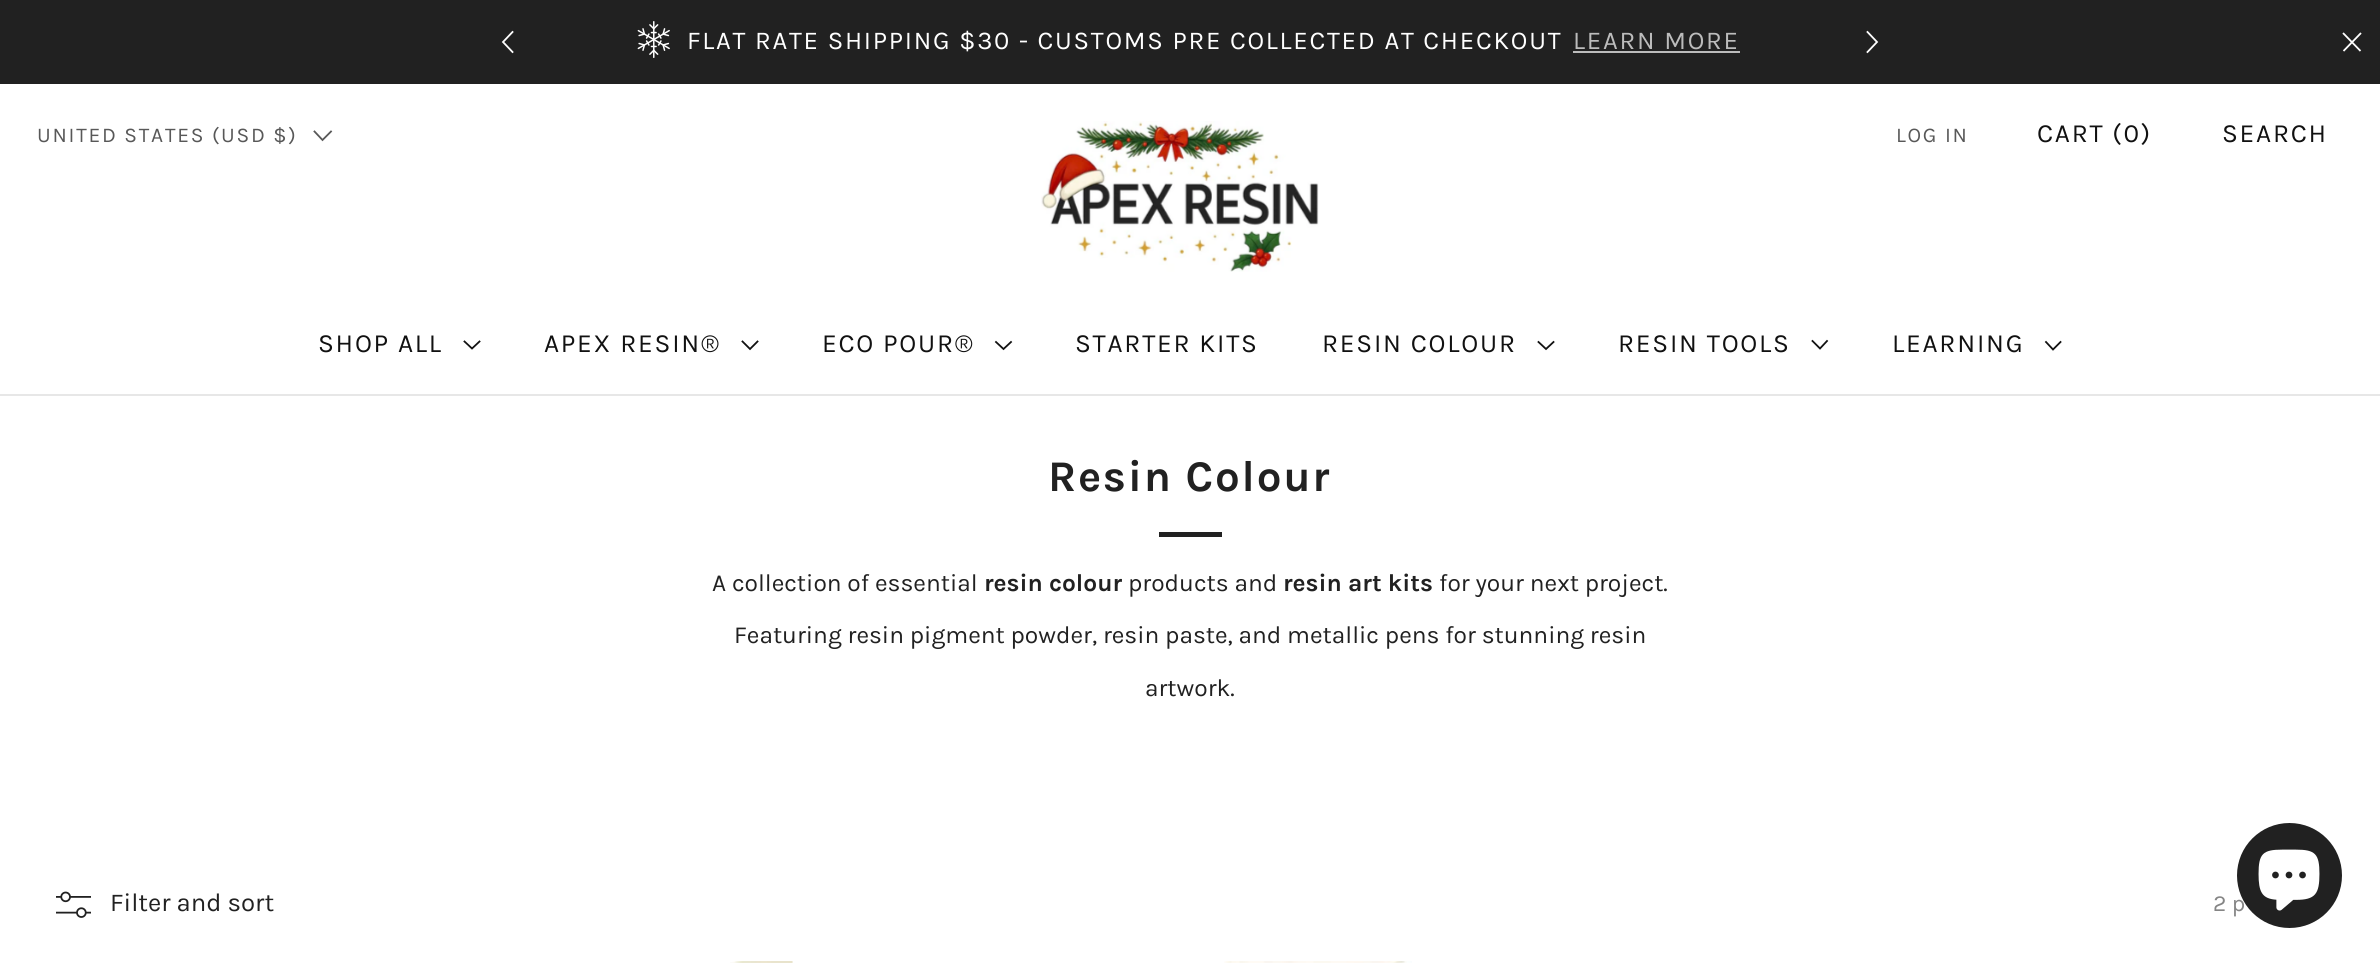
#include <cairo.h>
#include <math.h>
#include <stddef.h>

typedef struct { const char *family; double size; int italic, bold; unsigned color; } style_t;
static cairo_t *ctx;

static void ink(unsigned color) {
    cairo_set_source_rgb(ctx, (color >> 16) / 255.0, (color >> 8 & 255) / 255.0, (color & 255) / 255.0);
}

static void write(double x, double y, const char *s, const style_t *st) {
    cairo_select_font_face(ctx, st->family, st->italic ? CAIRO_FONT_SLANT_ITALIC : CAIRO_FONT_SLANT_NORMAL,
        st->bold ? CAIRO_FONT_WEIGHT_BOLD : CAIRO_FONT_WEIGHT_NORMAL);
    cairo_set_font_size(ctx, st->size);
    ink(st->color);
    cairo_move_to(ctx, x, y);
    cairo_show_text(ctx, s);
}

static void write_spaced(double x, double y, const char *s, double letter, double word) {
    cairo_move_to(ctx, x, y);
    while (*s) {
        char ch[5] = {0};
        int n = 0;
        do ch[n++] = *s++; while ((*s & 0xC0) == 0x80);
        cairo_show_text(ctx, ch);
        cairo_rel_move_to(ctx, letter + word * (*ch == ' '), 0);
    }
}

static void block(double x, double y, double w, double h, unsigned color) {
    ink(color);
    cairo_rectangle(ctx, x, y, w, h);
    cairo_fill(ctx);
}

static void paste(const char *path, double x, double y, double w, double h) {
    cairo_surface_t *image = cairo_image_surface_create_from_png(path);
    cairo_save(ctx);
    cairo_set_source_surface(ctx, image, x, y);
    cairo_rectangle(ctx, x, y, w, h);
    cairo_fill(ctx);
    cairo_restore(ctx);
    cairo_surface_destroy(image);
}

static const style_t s1 = {"Karla", 24.5, 0, 0, 0x212121};
static const style_t s2 = {"Karla", 24.5, 0, 1, 0x212121};
static const style_t s3 = {"Karla", 25.7, 0, 0, 0x212121};
static const style_t s4 = {"Karla", 23, 0, 0, 0x858585};

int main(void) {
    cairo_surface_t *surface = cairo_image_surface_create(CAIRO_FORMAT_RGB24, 2380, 963);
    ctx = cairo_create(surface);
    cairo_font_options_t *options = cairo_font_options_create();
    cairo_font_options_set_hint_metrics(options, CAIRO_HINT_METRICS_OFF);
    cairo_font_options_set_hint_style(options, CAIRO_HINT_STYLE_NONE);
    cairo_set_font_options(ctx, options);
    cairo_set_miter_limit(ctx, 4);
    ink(0xffffff);
    cairo_paint(ctx);
    block(0, 0, 2380, 84, 0x212121);
    cairo_new_path(ctx);
    cairo_move_to(ctx, 512.5, 52);
    cairo_line_to(ctx, 503, 42);
    cairo_line_to(ctx, 512.5, 32);
    ink(0xffffff);
    cairo_set_line_width(ctx, 1.8);
    cairo_set_line_cap(ctx, CAIRO_LINE_CAP_SQUARE);
    cairo_stroke(ctx);
    paste("pic1.png", 637, 21, 33, 37);
    cairo_select_font_face(ctx, "Karla", CAIRO_FONT_SLANT_NORMAL, CAIRO_FONT_WEIGHT_NORMAL);
    cairo_set_font_size(ctx, 25.7);
    write_spaced(687, 49, "FLAT RATE SHIPPING $30 - CUSTOMS PRE COLLECTED AT CHECKOUT", 1.75, 0);
    ink(0xbcbcbc);
    write_spaced(1573, 49, "LEARN MORE", 1.75, 0);
    block(1573, 51, 167, 2, 0xbcbcbc);
    cairo_new_path(ctx);
    cairo_move_to(ctx, 1867.5, 32);
    cairo_line_to(ctx, 1877, 42);
    cairo_line_to(ctx, 1867.5, 52);
    ink(0xffffff);
    cairo_stroke(ctx);
    cairo_new_path(ctx);
    cairo_move_to(ctx, 2343.5, 51);
    cairo_line_to(ctx, 2361, 33);
    cairo_move_to(ctx, 2343, 33);
    cairo_line_to(ctx, 2360.5, 51);
    cairo_set_line_cap(ctx, CAIRO_LINE_CAP_BUTT);
    cairo_stroke(ctx);
    block(0, 394, 2380, 2, 0xe7e7e7);
    paste("pic2.png", 1041, 121, 278, 151);
    cairo_set_font_size(ctx, 21);
    ink(0x585858);
    write_spaced(37, 142, "UNITED STATES (USD $)", 1.75, 0);
    cairo_new_path(ctx);
    cairo_move_to(ctx, 331, 131.5);
    cairo_line_to(ctx, 322.5, 140);
    cairo_line_to(ctx, 314.5, 131.5);
    cairo_set_line_cap(ctx, CAIRO_LINE_CAP_SQUARE);
    cairo_stroke(ctx);
    write_spaced(1896, 142, "LOG IN", 1.75, 0);
    cairo_set_font_size(ctx, 26.25);
    ink(0x111111);
    write_spaced(2037, 142, "CART (0)", 1.75, 0);
    write_spaced(2222, 142, "SEARCH", 1.75, 0);
    write_spaced(318, 352, "SHOP ALL", 1.75, 0);
    cairo_new_path(ctx);
    cairo_move_to(ctx, 479.5, 341.5);
    cairo_line_to(ctx, 472, 348.5);
    cairo_line_to(ctx, 464.5, 341.5);
    cairo_stroke(ctx);
    write_spaced(544, 352, "APEX RESIN®", 1.75, 0);
    cairo_new_path(ctx);
    cairo_move_to(ctx, 757.5, 341.5);
    cairo_line_to(ctx, 750, 349);
    cairo_line_to(ctx, 742.5, 341.5);
    cairo_stroke(ctx);
    write_spaced(822, 352, "ECO POUR®", 1.75, 0);
    cairo_new_path(ctx);
    cairo_move_to(ctx, 1011, 342);
    cairo_line_to(ctx, 1003.5, 349);
    cairo_line_to(ctx, 996, 342);
    cairo_stroke(ctx);
    write_spaced(1075, 352, "STARTER KITS", 1.75, 0);
    write_spaced(1322, 352, "RESIN COLOUR", 1.75, 0);
    cairo_new_path(ctx);
    cairo_move_to(ctx, 1553.5, 342);
    cairo_line_to(ctx, 1546, 349);
    cairo_line_to(ctx, 1538.5, 342);
    cairo_stroke(ctx);
    write_spaced(1618, 352, "RESIN TOOLS", 1.75, 0);
    cairo_new_path(ctx);
    cairo_move_to(ctx, 1827, 341);
    cairo_line_to(ctx, 1820, 348.5);
    cairo_line_to(ctx, 1812.5, 341);
    cairo_stroke(ctx);
    write_spaced(1892, 352, "LEARNING", 1.75, 0);
    cairo_new_path(ctx);
    cairo_move_to(ctx, 2060.5, 342);
    cairo_line_to(ctx, 2053, 349.5);
    cairo_line_to(ctx, 2046, 342);
    cairo_stroke(ctx);
    cairo_select_font_face(ctx, "Karla", CAIRO_FONT_SLANT_NORMAL, CAIRO_FONT_WEIGHT_BOLD);
    cairo_set_font_size(ctx, 43.75);
    ink(0x212121);
    write_spaced(1048, 491, "Resin Colour", 1.75, 0);
    block(1159, 532, 63, 5, 0x212121);
    write(712, 591, "A collection of essential", &s1);
    write(984, 591, "resin colour", &s2);
    write(1128, 591, "products and", &s1);
    write(1283, 591, "resin art kits", &s2);
    write(1439, 591, "for your next project.", &s1);
    write(734, 643, "Featuring resin pigment powder, resin paste, and metallic pens for stunning resin", &s1);
    write(1145, 696, "artwork.", &s1);
    paste("pic3.png", 56, 891, 35, 27);
    write(110, 911, "Filter and sort", &s3);
    write(2213, 911, "2 p", &s4);
    paste("pic4.png", 730, 961, 63, 2);
    paste("pic5.png", 1224, 961, 188, 2);
    ink(0x212121);
    cairo_arc(ctx, 2289.5, 875.5, 52.5, 0, 2 * M_PI);
    cairo_fill(ctx);
    paste("pic6.png", 2258, 849, 62, 62);
    cairo_surface_write_to_png(surface, "screenshot.png");
    cairo_font_options_destroy(options);
    cairo_destroy(ctx);
    cairo_surface_destroy(surface);
    return 0;
}
